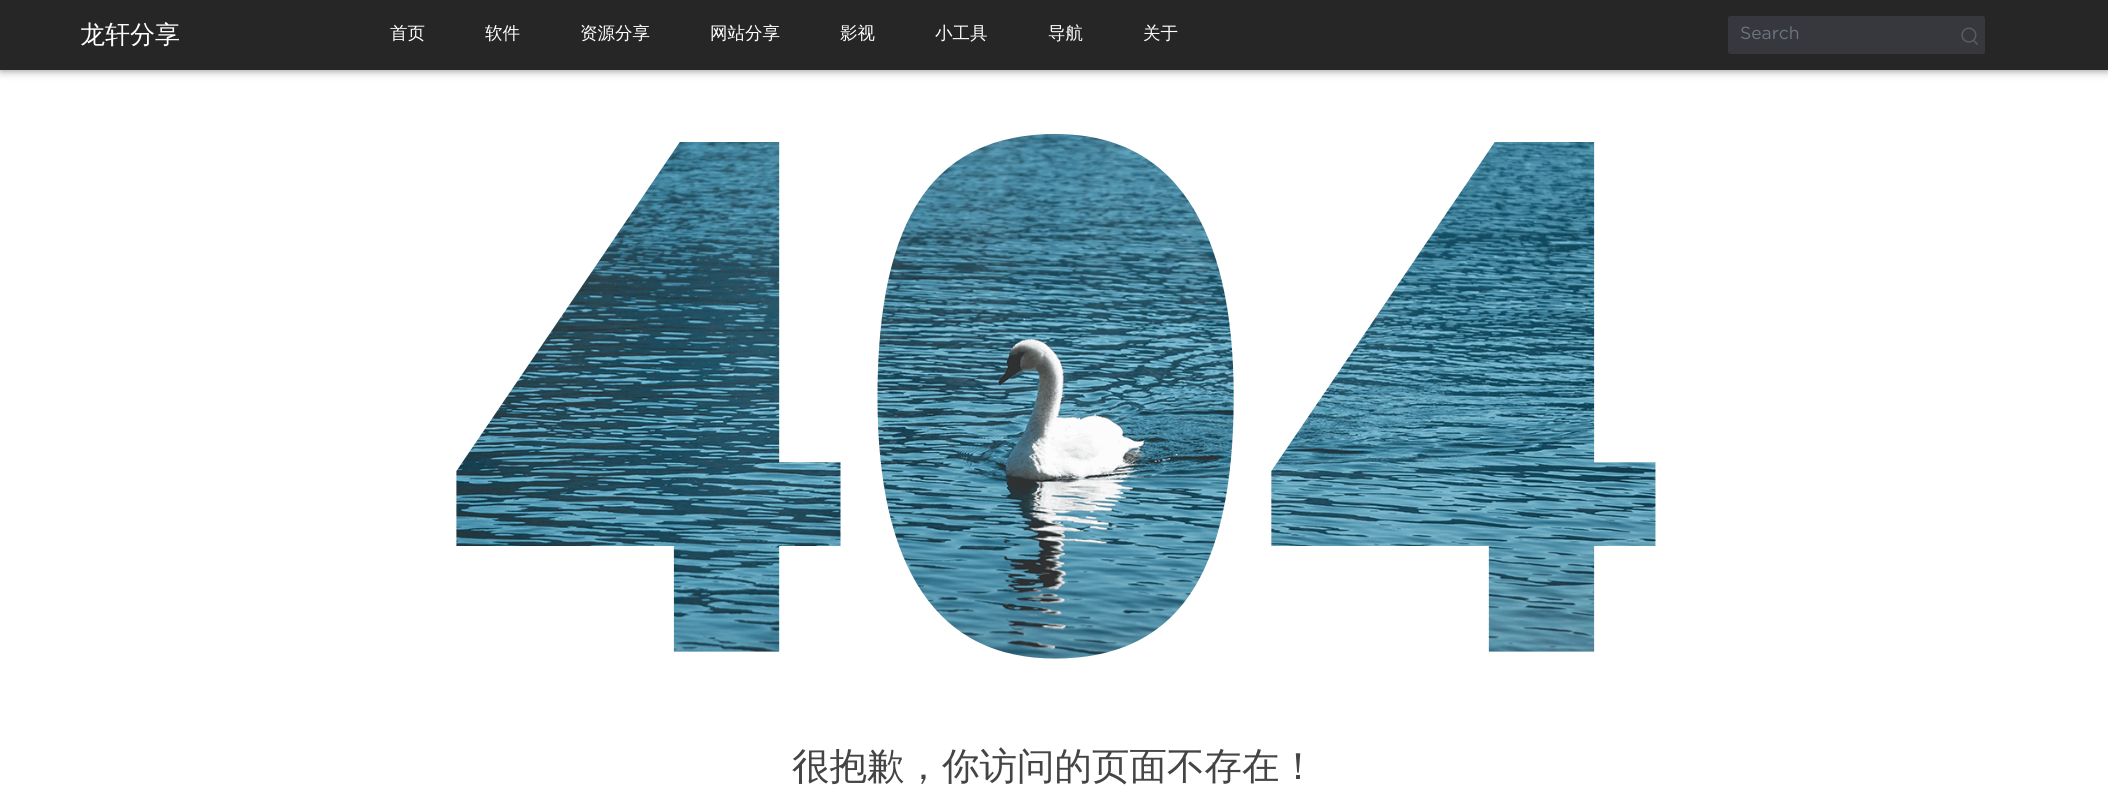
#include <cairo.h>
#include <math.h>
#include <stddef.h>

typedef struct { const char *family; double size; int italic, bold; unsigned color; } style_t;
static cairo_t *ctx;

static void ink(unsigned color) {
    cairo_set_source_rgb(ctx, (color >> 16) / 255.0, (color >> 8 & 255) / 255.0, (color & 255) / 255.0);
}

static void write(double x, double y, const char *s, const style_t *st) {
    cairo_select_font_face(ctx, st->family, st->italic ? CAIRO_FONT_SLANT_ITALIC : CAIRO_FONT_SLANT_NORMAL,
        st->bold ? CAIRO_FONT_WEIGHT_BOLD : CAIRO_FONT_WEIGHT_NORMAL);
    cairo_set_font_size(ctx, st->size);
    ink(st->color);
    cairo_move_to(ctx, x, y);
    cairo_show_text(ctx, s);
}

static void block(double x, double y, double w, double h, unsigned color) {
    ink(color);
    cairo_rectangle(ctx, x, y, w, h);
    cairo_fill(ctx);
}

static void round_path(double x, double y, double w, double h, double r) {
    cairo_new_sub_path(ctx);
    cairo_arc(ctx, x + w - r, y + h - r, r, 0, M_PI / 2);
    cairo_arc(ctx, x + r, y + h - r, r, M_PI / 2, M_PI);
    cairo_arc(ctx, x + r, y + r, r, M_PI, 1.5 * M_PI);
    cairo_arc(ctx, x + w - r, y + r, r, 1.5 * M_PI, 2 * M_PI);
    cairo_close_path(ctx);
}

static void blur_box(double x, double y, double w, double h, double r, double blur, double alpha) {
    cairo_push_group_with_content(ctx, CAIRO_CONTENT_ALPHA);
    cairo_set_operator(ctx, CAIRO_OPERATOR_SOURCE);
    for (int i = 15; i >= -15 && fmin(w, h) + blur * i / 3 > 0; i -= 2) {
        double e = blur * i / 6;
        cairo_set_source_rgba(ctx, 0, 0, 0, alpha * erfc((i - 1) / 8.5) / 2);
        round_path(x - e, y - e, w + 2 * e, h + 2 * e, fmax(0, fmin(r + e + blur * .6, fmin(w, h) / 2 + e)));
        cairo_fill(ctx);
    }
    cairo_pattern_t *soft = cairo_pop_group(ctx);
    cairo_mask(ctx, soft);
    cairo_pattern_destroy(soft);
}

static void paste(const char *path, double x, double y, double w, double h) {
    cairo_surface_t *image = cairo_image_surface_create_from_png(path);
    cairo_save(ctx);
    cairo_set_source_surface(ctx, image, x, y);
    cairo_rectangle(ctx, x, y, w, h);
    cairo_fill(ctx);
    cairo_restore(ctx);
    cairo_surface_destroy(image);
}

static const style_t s1 = {"WenQuanYi Zen Hei Medium", 25, 0, 0, 0xffffff};
static const style_t s2 = {"WenQuanYi Zen Hei Medium", 17.5, 0, 0, 0xffffff};
static const style_t s3 = {"Gotham", 17.5, 0, 0, 0x6c757d};
static const style_t s4 = {"WenQuanYi Zen Hei Medium", 37.5, 0, 0, 0x444444};

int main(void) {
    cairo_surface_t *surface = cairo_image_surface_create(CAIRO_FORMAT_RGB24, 2108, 803);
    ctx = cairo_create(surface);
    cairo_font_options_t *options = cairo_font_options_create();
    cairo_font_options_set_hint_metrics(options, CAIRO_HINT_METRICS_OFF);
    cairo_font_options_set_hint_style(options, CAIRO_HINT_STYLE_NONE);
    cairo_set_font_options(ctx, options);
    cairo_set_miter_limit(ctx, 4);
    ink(0xffffff);
    cairo_paint(ctx);
    ink(0x000000);
    blur_box(1, 1, 2107, 68, 0, 5, 0.6);
    block(0, 0, 2108, 70, 0x262626);
    write(80, 43, "龙轩分享", &s1);
    write(390, 39, "首页", &s2);
    write(485, 39, "软件", &s2);
    write(580, 39, "资源分享", &s2);
    write(710, 39, "网站分享", &s2);
    write(840, 39, "影视", &s2);
    write(935, 39, "小工具", &s2);
    write(1048, 39, "导航", &s2);
    write(1143, 39, "关于", &s2);
    ink(0x36383d);
    round_path(1728, 16, 257, 38, 2.5);
    cairo_fill(ctx);
    write(1740, 39, "Search", &s3);
    paste("pic1.png", 1961, 27, 17, 18);
    paste("pic2.png", 456, 134, 1200, 525);
    paste("pic3.png", 386, 100, 1338, 625);
    write(792, 779, "很抱歉，你访问的页面不存在！", &s4);
    cairo_surface_write_to_png(surface, "screenshot.png");
    cairo_font_options_destroy(options);
    cairo_destroy(ctx);
    cairo_surface_destroy(surface);
    return 0;
}
